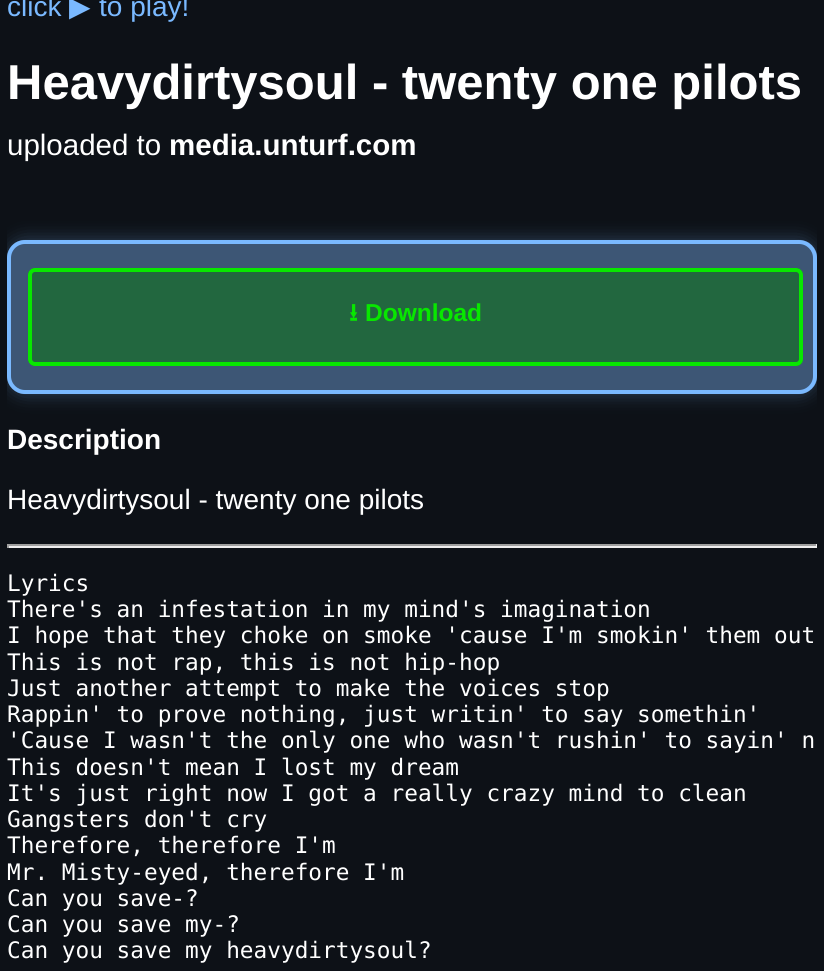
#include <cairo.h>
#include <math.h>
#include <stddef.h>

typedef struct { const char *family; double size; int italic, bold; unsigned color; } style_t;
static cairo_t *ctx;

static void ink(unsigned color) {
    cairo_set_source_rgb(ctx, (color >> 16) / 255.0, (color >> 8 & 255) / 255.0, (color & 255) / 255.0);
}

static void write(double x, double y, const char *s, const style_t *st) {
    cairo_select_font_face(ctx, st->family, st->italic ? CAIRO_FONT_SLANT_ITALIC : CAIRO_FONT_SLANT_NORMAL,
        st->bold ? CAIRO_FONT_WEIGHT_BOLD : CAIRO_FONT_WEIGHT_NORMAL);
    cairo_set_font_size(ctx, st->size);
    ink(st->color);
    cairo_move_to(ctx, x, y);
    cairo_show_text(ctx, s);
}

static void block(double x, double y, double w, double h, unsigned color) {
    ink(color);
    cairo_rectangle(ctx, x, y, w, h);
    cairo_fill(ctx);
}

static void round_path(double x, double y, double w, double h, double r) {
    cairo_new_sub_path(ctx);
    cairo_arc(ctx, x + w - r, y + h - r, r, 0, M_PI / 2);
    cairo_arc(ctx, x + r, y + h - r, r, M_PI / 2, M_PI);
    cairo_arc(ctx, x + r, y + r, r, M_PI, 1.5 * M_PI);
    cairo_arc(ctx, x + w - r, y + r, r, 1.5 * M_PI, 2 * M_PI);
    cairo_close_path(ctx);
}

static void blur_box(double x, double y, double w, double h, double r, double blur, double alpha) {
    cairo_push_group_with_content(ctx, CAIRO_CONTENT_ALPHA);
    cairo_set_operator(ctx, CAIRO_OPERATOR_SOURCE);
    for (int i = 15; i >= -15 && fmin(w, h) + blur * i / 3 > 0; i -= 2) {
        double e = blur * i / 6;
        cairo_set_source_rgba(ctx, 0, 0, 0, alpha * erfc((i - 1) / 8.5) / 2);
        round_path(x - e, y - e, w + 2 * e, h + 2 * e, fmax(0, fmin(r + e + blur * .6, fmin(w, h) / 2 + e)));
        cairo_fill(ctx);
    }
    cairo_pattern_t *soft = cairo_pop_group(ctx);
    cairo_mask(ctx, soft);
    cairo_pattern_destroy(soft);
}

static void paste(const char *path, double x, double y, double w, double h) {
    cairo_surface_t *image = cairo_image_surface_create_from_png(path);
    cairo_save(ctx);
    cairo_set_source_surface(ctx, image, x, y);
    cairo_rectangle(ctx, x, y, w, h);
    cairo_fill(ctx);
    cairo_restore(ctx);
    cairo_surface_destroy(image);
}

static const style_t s1 = {"Liberation Sans", 28, 0, 0, 0x7ab9ff};
static const style_t s2 = {"DejaVu Sans", 28, 0, 0, 0x7ab9ff};
static const style_t s3 = {"Liberation Sans", 49, 0, 1, 0xffffff};
static const style_t s4 = {"Liberation Sans", 29.5, 0, 0, 0xffffff};
static const style_t s5 = {"Liberation Sans", 29.5, 0, 1, 0xffffff};
static const style_t s6 = {"Noto Sans Symbols 2", 24.5, 0, 1, 0x08e700};
static const style_t s7 = {"Liberation Sans", 24.5, 0, 1, 0x08e700};
static const style_t s8 = {"Liberation Sans", 28, 0, 1, 0xffffff};
static const style_t s9 = {"Liberation Sans", 28, 0, 0, 0xffffff};
static const style_t s10 = {"DejaVu Sans Mono", 22.75, 0, 0, 0xffffff};

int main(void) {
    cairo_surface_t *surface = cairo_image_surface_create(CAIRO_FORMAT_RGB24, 824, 971);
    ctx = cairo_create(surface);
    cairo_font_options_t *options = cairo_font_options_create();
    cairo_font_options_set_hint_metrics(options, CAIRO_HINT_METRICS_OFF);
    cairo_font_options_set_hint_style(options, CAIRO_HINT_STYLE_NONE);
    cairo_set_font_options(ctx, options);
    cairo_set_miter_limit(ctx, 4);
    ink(0x0d1117);
    cairo_paint(ctx);
    write(7, 16, "click", &s1);
    write(69, 16, "▶", &s2);
    write(99, 16, "to play!", &s1);
    write(7, 99, "Heavydirtysoul - twenty one pilots", &s3);
    write(7, 155, "uploaded to", &s4);
    write(169, 155, "media.unturf.com", &s5);
    cairo_save(ctx);
    cairo_rectangle(ctx, 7, 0, 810, 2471);
    cairo_clip(ctx);
    ink(0x7ab9ff);
    blur_box(7, 240, 810, 154, 18, 9, 0.3);
    cairo_restore(ctx);
    ink(0x2d3748);
    round_path(7, 240, 810, 154, 18);
    cairo_fill(ctx);
    paste("pic1.png", 7, 240, 810, 154);
    round_path(9, 242, 806, 150, 16);
    ink(0x7ab9ff);
    cairo_set_line_width(ctx, 4);
    cairo_stroke(ctx);
    ink(0x2d3748);
    round_path(28, 268, 775, 98, 7);
    cairo_fill(ctx);
    paste("pic2.png", 28, 268, 775, 98);
    round_path(30, 270, 771, 94, 5);
    ink(0x08e700);
    cairo_stroke(ctx);
    write(349, 321, "⭳", &s6);
    write(365, 321, "Download", &s7);
    write(7, 449, "Description", &s8);
    write(7, 509, "Heavydirtysoul - twenty one pilots", &s9);
    block(7, 544, 810, 2, 0x9f9f9f);
    block(816, 544, 1, 4, 0xeeeeee);
    block(7, 546, 810, 2, 0xeeeeee);
    block(7, 544, 2, 4, 0x9f9f9f);
    write(7, 591, "Lyrics", &s10);
    write(7, 617, "There's an infestation in my mind's imagination", &s10);
    write(7, 643, "I hope that they choke on smoke 'cause I'm smokin' them out", &s10);
    write(7, 670, "This is not rap, this is not hip-hop", &s10);
    write(7, 696, "Just another attempt to make the voices stop", &s10);
    write(7, 722, "Rappin' to prove nothing, just writin' to say somethin'", &s10);
    write(7, 748, "'Cause I wasn't the only one who wasn't rushin' to sayin' n", &s10);
    write(7, 775, "This doesn't mean I lost my dream", &s10);
    write(7, 801, "It's just right now I got a really crazy mind to clean", &s10);
    write(7, 827, "Gangsters don't cry", &s10);
    write(7, 853, "Therefore, therefore I'm", &s10);
    write(7, 880, "Mr. Misty-eyed, therefore I'm", &s10);
    write(7, 906, "Can you save-?", &s10);
    write(7, 932, "Can you save my-?", &s10);
    write(7, 958, "Can you save my heavydirtysoul?", &s10);
    cairo_surface_write_to_png(surface, "screenshot.png");
    cairo_font_options_destroy(options);
    cairo_destroy(ctx);
    cairo_surface_destroy(surface);
    return 0;
}
